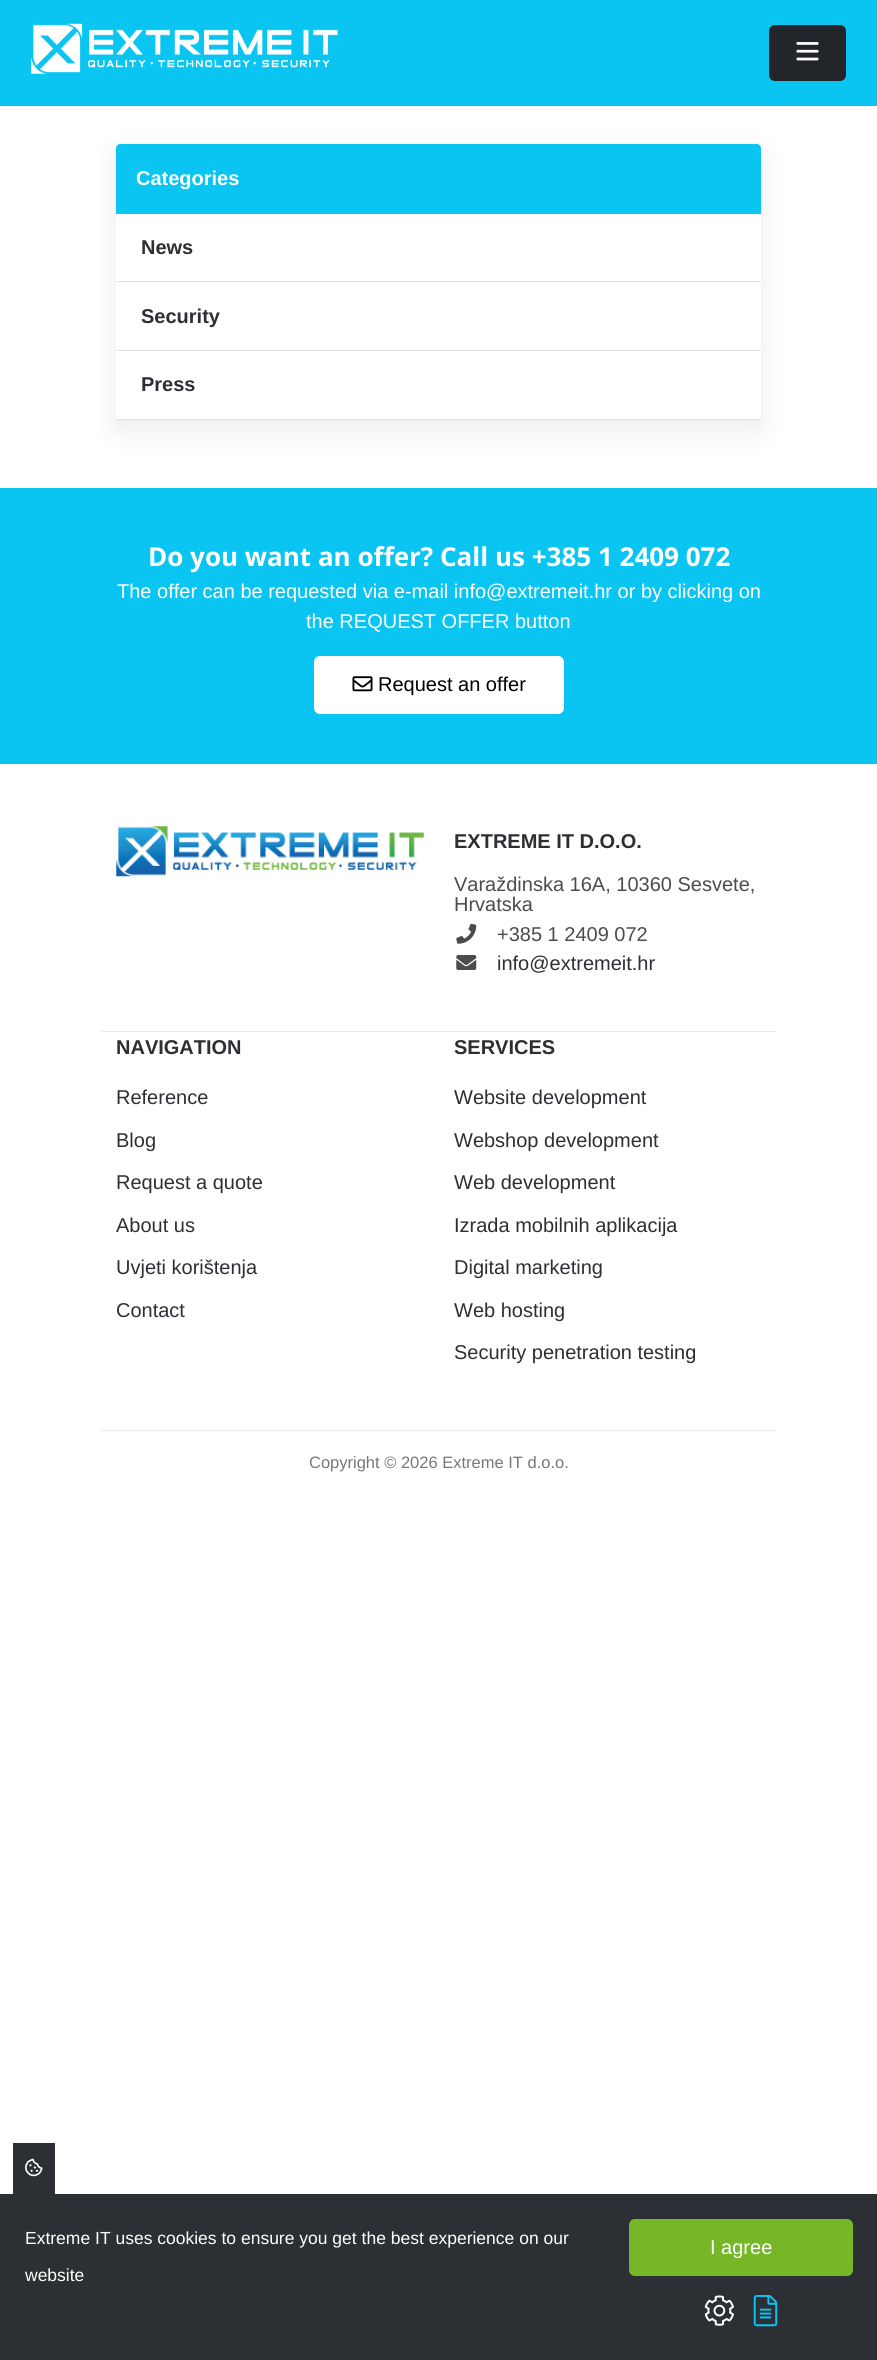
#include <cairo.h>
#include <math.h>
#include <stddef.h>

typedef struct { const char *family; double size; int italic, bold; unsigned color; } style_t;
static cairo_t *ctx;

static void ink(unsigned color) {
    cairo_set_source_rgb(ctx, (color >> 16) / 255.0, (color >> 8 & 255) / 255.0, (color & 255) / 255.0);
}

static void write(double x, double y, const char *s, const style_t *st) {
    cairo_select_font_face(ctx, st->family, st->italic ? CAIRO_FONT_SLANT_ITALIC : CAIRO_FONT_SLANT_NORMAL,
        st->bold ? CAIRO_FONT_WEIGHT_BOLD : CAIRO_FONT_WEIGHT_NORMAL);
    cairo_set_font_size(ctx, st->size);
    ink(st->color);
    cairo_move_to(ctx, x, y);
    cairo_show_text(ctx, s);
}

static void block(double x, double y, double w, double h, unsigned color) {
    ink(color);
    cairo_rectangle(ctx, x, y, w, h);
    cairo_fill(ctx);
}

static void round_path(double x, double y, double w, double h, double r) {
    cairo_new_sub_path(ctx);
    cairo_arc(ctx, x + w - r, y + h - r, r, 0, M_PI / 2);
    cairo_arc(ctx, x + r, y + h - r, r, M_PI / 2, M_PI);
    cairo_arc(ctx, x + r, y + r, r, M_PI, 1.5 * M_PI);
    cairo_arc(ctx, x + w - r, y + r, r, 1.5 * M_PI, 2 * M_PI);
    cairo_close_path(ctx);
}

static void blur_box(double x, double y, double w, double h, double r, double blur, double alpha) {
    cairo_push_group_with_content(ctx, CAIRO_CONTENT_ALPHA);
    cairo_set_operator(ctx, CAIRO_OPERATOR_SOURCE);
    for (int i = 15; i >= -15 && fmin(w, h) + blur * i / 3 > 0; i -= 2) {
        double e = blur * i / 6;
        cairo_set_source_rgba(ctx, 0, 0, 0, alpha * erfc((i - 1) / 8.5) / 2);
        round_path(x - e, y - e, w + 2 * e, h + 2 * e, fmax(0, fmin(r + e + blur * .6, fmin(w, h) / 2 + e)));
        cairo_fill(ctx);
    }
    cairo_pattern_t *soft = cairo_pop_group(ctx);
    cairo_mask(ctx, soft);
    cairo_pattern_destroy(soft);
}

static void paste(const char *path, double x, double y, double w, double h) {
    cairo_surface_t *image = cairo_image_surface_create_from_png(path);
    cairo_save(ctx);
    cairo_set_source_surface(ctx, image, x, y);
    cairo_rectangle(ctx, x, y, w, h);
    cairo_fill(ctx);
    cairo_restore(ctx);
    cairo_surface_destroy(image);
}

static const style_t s1 = {"Liberation Sans", 20, 0, 1, 0xffffff};
static const style_t s2 = {"Liberation Sans", 20, 0, 1, 0x2c2f33};
static const style_t s3 = {"Open Sans", 26, 0, 1, 0xffffff};
static const style_t s4 = {"Liberation Sans", 20, 0, 0, 0xffffff};
static const style_t s5 = {"Liberation Sans", 20, 0, 0, 0x000000};
static const style_t s6 = {"Liberation Sans", 20, 0, 0, 0x4c4c4c};
static const style_t s7 = {"Liberation Sans", 20, 0, 0, 0x2c2f33};
static const style_t s8 = {"Liberation Sans", 16.5, 0, 0, 0x777777};
static const style_t s9 = {"Liberation Sans", 17.5, 0, 0, 0xffffff};

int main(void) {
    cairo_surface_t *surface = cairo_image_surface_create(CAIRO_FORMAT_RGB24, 877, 2360);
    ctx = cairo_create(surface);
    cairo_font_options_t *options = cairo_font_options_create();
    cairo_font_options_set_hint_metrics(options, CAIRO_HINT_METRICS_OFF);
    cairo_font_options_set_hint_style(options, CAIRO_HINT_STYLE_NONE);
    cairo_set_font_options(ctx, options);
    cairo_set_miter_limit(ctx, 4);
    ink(0xffffff);
    cairo_paint(ctx);
    block(0, 0, 877, 106, 0x0ac4f2);
    paste("pic1.png", 31, 23, 307, 51);
    ink(0x222529);
    round_path(769, 25, 77, 56, 6);
    cairo_fill(ctx);
    paste("pic2.png", 796, 42, 23, 19);
    cairo_save(ctx);
    cairo_set_fill_rule(ctx, CAIRO_FILL_RULE_EVEN_ODD);
    cairo_new_path(ctx);
    cairo_move_to(ctx, 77, 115);
    cairo_line_to(ctx, 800, 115);
    cairo_line_to(ctx, 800, 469);
    cairo_line_to(ctx, 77, 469);
    cairo_close_path(ctx);
    cairo_move_to(ctx, 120, 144);
    cairo_line_to(ctx, 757, 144);
    cairo_curve_to(ctx, 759, 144, 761, 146, 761, 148);
    cairo_line_to(ctx, 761, 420);
    cairo_line_to(ctx, 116, 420);
    cairo_line_to(ctx, 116, 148);
    cairo_curve_to(ctx, 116, 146, 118, 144, 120, 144);
    cairo_close_path(ctx);
    cairo_clip(ctx);
    ink(0xe9ecef);
    blur_box(116, 154, 645, 276, 4, 12.5, 1);
    cairo_restore(ctx);
    ink(0x0ac4f2);
    cairo_new_path(ctx);
    cairo_move_to(ctx, 120, 144);
    cairo_line_to(ctx, 757, 144);
    cairo_curve_to(ctx, 759, 144, 761, 146, 761, 148);
    cairo_line_to(ctx, 761, 214);
    cairo_line_to(ctx, 116, 214);
    cairo_line_to(ctx, 116, 148);
    cairo_curve_to(ctx, 116, 146, 118, 144, 120, 144);
    cairo_close_path(ctx);
    cairo_fill(ctx);
    write(136, 185, "Categories", &s1);
    block(116, 281, 645, 1, 0xdee2e6);
    write(141, 254, "News", &s2);
    block(116, 350, 645, 1, 0xdee2e6);
    write(141, 323, "Security", &s2);
    block(116, 419, 645, 1, 0xdee2e6);
    write(141, 391, "Press", &s2);
    block(0, 488, 877, 276, 0x0ac4f2);
    write(148, 566, "Do you want an offer? Call us +385 1 2409 072", &s3);
    write(117, 598, "The offer can be requested via e-mail info@extremeit.hr or by clicking on", &s4);
    write(306, 628, "the REQUEST OFFER button", &s4);
    round_path(314, 656, 250, 58, 6);
    cairo_fill(ctx);
    paste("pic3.png", 352, 676, 21, 16);
    write(378, 691, "Request an offer", &s5);
    block(101, 1031, 675, 1, 0xe9ecef);
    paste("pic4.png", 116, 826, 308, 51);
    write(454, 848, "EXTREME IT D.O.O.", &s2);
    write(454, 891, "Varaždinska 16A, 10360 Sesvete,", &s6);
    write(454, 911, "Hrvatska", &s6);
    paste("pic5.png", 456, 923, 21, 21);
    write(497, 941, "+385 1 2409 072", &s6);
    paste("pic6.png", 456, 955, 21, 15);
    write(497, 970, "info@extremeit.hr", &s7);
    block(101, 1430, 675, 1, 0xe9ecef);
    write(116, 1054, "NAVIGATION", &s2);
    write(116, 1104, "Reference", &s7);
    write(116, 1147, "Blog", &s7);
    write(116, 1189, "Request a quote", &s7);
    write(116, 1232, "About us", &s7);
    write(116, 1274, "Uvjeti korištenja", &s7);
    write(116, 1317, "Contact", &s7);
    write(454, 1054, "SERVICES", &s2);
    write(454, 1104, "Website development", &s7);
    write(454, 1147, "Webshop development", &s7);
    write(454, 1189, "Web development", &s7);
    write(454, 1232, "Izrada mobilnih aplikacija", &s7);
    write(454, 1274, "Digital marketing", &s7);
    write(454, 1317, "Web hosting", &s7);
    write(454, 1359, "Security penetration testing", &s7);
    write(309, 1468, "Copyright © 2026 Extreme IT d.o.o.", &s8);
    block(0, 2194, 877, 166, 0x2c2f33);
    block(13, 2143, 42, 51, 0x2c2f33);
    paste("pic7.png", 25, 2158, 18, 19);
    write(25, 2244, "Extreme IT uses cookies to ensure you get the best experience on our", &s9);
    write(25, 2281, "website", &s9);
    ink(0x76b728);
    round_path(629, 2219, 224, 57, 6);
    cairo_fill(ctx);
    write(710, 2254, "I agree", &s4);
    paste("pic8.png", 704, 2295, 30, 31);
    paste("pic9.png", 753, 2295, 25, 32);
    cairo_surface_write_to_png(surface, "screenshot.png");
    cairo_font_options_destroy(options);
    cairo_destroy(ctx);
    cairo_surface_destroy(surface);
    return 0;
}
